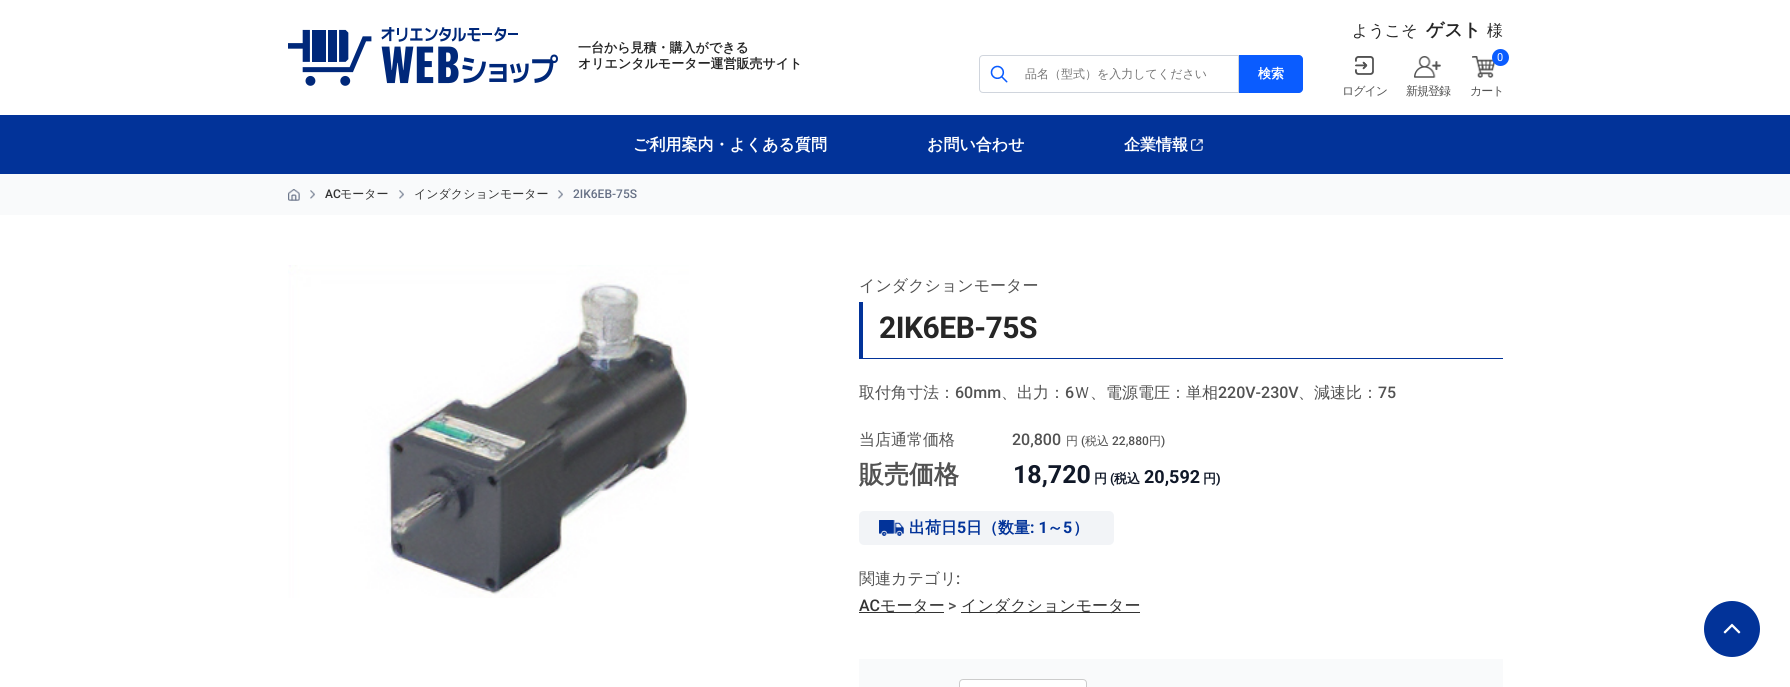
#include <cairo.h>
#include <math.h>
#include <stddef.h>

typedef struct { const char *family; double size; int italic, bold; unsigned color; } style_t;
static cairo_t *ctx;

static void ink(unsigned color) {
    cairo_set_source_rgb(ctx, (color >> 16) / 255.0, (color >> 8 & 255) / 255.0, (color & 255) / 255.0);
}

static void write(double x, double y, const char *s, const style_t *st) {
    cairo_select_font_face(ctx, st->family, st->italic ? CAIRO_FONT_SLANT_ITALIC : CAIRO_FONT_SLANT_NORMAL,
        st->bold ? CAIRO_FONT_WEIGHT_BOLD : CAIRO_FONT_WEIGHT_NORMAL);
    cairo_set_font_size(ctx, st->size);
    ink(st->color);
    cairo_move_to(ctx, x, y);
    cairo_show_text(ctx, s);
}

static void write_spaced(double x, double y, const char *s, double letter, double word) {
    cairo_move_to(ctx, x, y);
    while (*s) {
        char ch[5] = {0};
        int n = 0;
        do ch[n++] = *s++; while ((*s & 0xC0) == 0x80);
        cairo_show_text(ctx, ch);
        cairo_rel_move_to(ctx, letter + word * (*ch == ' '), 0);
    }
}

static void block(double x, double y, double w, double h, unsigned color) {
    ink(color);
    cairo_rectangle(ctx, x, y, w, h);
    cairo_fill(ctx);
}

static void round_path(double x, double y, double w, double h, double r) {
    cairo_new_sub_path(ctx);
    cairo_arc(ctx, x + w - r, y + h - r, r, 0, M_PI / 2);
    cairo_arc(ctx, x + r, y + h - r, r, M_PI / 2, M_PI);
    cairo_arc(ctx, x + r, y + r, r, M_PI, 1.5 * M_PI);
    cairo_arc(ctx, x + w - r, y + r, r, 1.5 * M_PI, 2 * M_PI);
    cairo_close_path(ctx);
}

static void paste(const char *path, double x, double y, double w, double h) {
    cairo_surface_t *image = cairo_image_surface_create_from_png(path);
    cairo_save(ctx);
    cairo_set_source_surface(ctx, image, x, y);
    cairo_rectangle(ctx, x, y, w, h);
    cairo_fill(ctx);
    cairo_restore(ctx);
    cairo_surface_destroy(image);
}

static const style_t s1 = {"WenQuanYi Zen Hei", 13, 0, 1, 0x262626};
static const style_t s2 = {"WenQuanYi Zen Hei Medium", 16, 0, 0, 0x262626};
static const style_t s3 = {"WenQuanYi Zen Hei", 18, 0, 1, 0x262626};
static const style_t s4 = {"Roboto", 11, 0, 0, 0xffffff};
static const style_t s5 = {"WenQuanYi Zen Hei Medium", 12, 0, 0, 0x757575};
static const style_t s6 = {"WenQuanYi Zen Hei", 13, 0, 1, 0xffffff};
static const style_t s7 = {"WenQuanYi Zen Hei", 16, 0, 1, 0xffffff};
static const style_t s8 = {"Roboto Medium", 12, 0, 0, 0x333333};
static const style_t s9 = {"WenQuanYi Zen Hei Medium", 12, 0, 0, 0x333333};
static const style_t s10 = {"Roboto Medium", 12, 0, 0, 0x667085};
static const style_t s11 = {"WenQuanYi Zen Hei Medium", 16, 0, 0, 0x525252};
static const style_t s12 = {"Roboto Medium", 16, 0, 0, 0x525252};
static const style_t s13 = {"WenQuanYi Zen Hei Medium", 12, 0, 0, 0x525252};
static const style_t s14 = {"Roboto Medium", 12, 0, 0, 0x525252};
static const style_t s15 = {"WenQuanYi Zen Hei", 25, 0, 1, 0x525252};
static const style_t s16 = {"Roboto", 25, 0, 1, 0x101828};
static const style_t s17 = {"WenQuanYi Zen Hei", 13, 0, 1, 0x101828};
static const style_t s18 = {"Roboto", 13, 0, 1, 0x101828};
static const style_t s19 = {"Roboto", 18, 0, 1, 0x101828};
static const style_t s20 = {"WenQuanYi Zen Hei", 16, 0, 1, 0x023399};
static const style_t s21 = {"Roboto", 16, 0, 1, 0x023399};
static const style_t s22 = {"Roboto Medium", 16, 0, 0, 0x333333};
static const style_t s23 = {"WenQuanYi Zen Hei Medium", 16, 0, 0, 0x333333};

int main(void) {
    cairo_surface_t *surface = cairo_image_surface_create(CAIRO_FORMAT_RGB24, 1790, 687);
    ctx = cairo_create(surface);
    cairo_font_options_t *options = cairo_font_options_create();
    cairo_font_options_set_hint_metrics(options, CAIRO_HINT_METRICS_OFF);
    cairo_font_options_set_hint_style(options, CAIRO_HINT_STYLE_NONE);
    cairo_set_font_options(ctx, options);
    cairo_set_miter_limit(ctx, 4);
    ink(0xffffff);
    cairo_paint(ctx);
    paste("pic1.png", 288, 27, 270, 59);
    write(578, 52, "一台から見積・購入ができる", &s1);
    write(578, 68, "オリエンタルモーター運営販売サイト", &s1);
    write(1352, 36, "ようこそ", &s2);
    write(1426, 36, "ゲスト", &s3);
    write(1487, 36, "様", &s2);
    paste("pic2.png", 1355, 56, 19, 19);
    cairo_set_font_size(ctx, 12);
    ink(0x525252);
    write_spaced(1342, 95, "ログイン", -1, 0);
    paste("pic3.png", 1414, 56, 27, 22);
    write_spaced(1406, 95, "新規登録", -1, 0);
    paste("pic4.png", 1472, 56, 23, 22);
    ink(0x0a5cff);
    cairo_arc(ctx, 1500.5, 57.5, 8.5, 0, 2 * M_PI);
    cairo_fill(ctx);
    write(1497, 61, "0", &s4);
    cairo_select_font_face(ctx, "WenQuanYi Zen Hei Medium", CAIRO_FONT_SLANT_NORMAL, CAIRO_FONT_WEIGHT_NORMAL);
    cairo_set_font_size(ctx, 12);
    ink(0x525252);
    write_spaced(1470, 95, "カート", -1, 0);
    paste("pic5.png", 990, 65, 18, 18);
    cairo_new_path(ctx);
    cairo_move_to(ctx, 983, 55.5);
    cairo_line_to(ctx, 1238.5, 55.5);
    cairo_line_to(ctx, 1238.5, 92.5);
    cairo_line_to(ctx, 983, 92.5);
    cairo_curve_to(ctx, 981, 92.5, 979.5, 91, 979.5, 89);
    cairo_line_to(ctx, 979.5, 59);
    cairo_curve_to(ctx, 979.5, 57, 981, 55.5, 983, 55.5);
    cairo_close_path(ctx);
    ink(0xd0d5dd);
    cairo_set_line_width(ctx, 1);
    cairo_stroke(ctx);
    write(1025, 78, "品名（型式）を入力してください", &s5);
    ink(0x0a5cff);
    cairo_new_path(ctx);
    cairo_move_to(ctx, 1239, 55);
    cairo_line_to(ctx, 1299, 55);
    cairo_curve_to(ctx, 1301, 55, 1303, 57, 1303, 59);
    cairo_line_to(ctx, 1303, 89);
    cairo_curve_to(ctx, 1303, 91, 1301, 93, 1299, 93);
    cairo_line_to(ctx, 1239, 93);
    cairo_close_path(ctx);
    cairo_fill(ctx);
    write(1258, 78, "検索", &s6);
    block(0, 115, 1790, 59, 0x023399);
    write(633, 150, "ご利用案内・よくある質問", &s7);
    write(927, 150, "お問い合わせ", &s7);
    paste("pic6.png", 1191, 139, 12, 12);
    write(1124, 150, "企業情報", &s7);
    block(0, 174, 1790, 41, 0xf9fafb);
    paste("pic7.png", 288, 189, 12, 12);
    paste("pic8.png", 310, 190, 5, 9);
    write(325, 198, "AC", &s8);
    write(340, 198, "モーター", &s9);
    paste("pic9.png", 399, 190, 5, 9);
    write(414, 198, "インダクションモーター", &s9);
    paste("pic8.png", 558, 190, 5, 9);
    write(573, 198, "2IK6EB-75S", &s10);
    paste("pic10.png", 288, 265, 401, 333);
    write(859, 291, "インダクションモーター", &s11);
    block(859, 358, 644, 1, 0x023399);
    block(859, 302, 4, 56, 0x023399);
    cairo_select_font_face(ctx, "Roboto", CAIRO_FONT_SLANT_NORMAL, CAIRO_FONT_WEIGHT_BOLD);
    cairo_set_font_size(ctx, 30);
    ink(0x262626);
    write_spaced(879, 338, "2IK6EB-75S", -0.5, 0);
    write(859, 398, "取付角寸法：", &s11);
    write(955, 398, "60mm", &s12);
    write(1001, 398, "、出力：", &s11);
    write(1065, 398, "6", &s12);
    write(1074, 398, "Ｗ、電源電圧：単相", &s11);
    write(1218, 398, "220V-230V", &s12);
    write(1298, 398, "、減速比：", &s11);
    write(1378, 398, "75", &s12);
    write(859, 445, "当店通常価格", &s11);
    write(1012, 445, "20,800", &s12);
    write(1066, 445, "円", &s13);
    write(1081, 445, "(", &s14);
    write(1085, 445, "税込", &s13);
    write(1112, 445, "22,880", &s14);
    write(1149, 445, "円", &s13);
    write(1161, 445, ")", &s14);
    write(859, 483, "販売価格", &s15);
    write(1013, 483, "18,720", &s16);
    write(1094, 483, "円", &s17);
    write(1110, 483, "(", &s18);
    write(1114, 483, "税込", &s17);
    write(1144, 483, "20,592", &s19);
    write(1203, 483, "円", &s17);
    write(1216, 483, ")", &s18);
    ink(0xf2f4f7);
    round_path(859, 511, 255, 34, 5);
    cairo_fill(ctx);
    paste("pic11.png", 879, 520, 25, 16);
    write(909, 533, "出荷日", &s20);
    write(957, 533, "5", &s21);
    write(966, 533, "日（数量", &s20);
    write(1030, 533, ": 1", &s21);
    write(1047, 533, "～", &s20);
    write(1063, 533, "5", &s21);
    write(1073, 533, "）", &s20);
    write(859, 584, "関連カテゴリ", &s11);
    write(956, 584, ":", &s12);
    write(859, 611, "AC", &s22);
    block(859, 612, 85, 1, 0x333333);
    write(880, 611, "モーター", &s23);
    write(948, 611, ">", &s12);
    block(961, 612, 179, 1, 0x333333);
    write(961, 611, "インダクションモーター", &s23);
    block(859, 659, 644, 28, 0xf9fafb);
    ink(0xffffff);
    round_path(959.5, 679.5, 127, 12, 3.5);
    cairo_fill_preserve(ctx);
    ink(0xcccccc);
    cairo_stroke(ctx);
    ink(0x023399);
    cairo_arc(ctx, 1732, 629, 28, 0, 2 * M_PI);
    cairo_fill(ctx);
    paste("pic12.png", 1723, 623, 18, 11);
    cairo_surface_write_to_png(surface, "screenshot.png");
    cairo_font_options_destroy(options);
    cairo_destroy(ctx);
    cairo_surface_destroy(surface);
    return 0;
}
